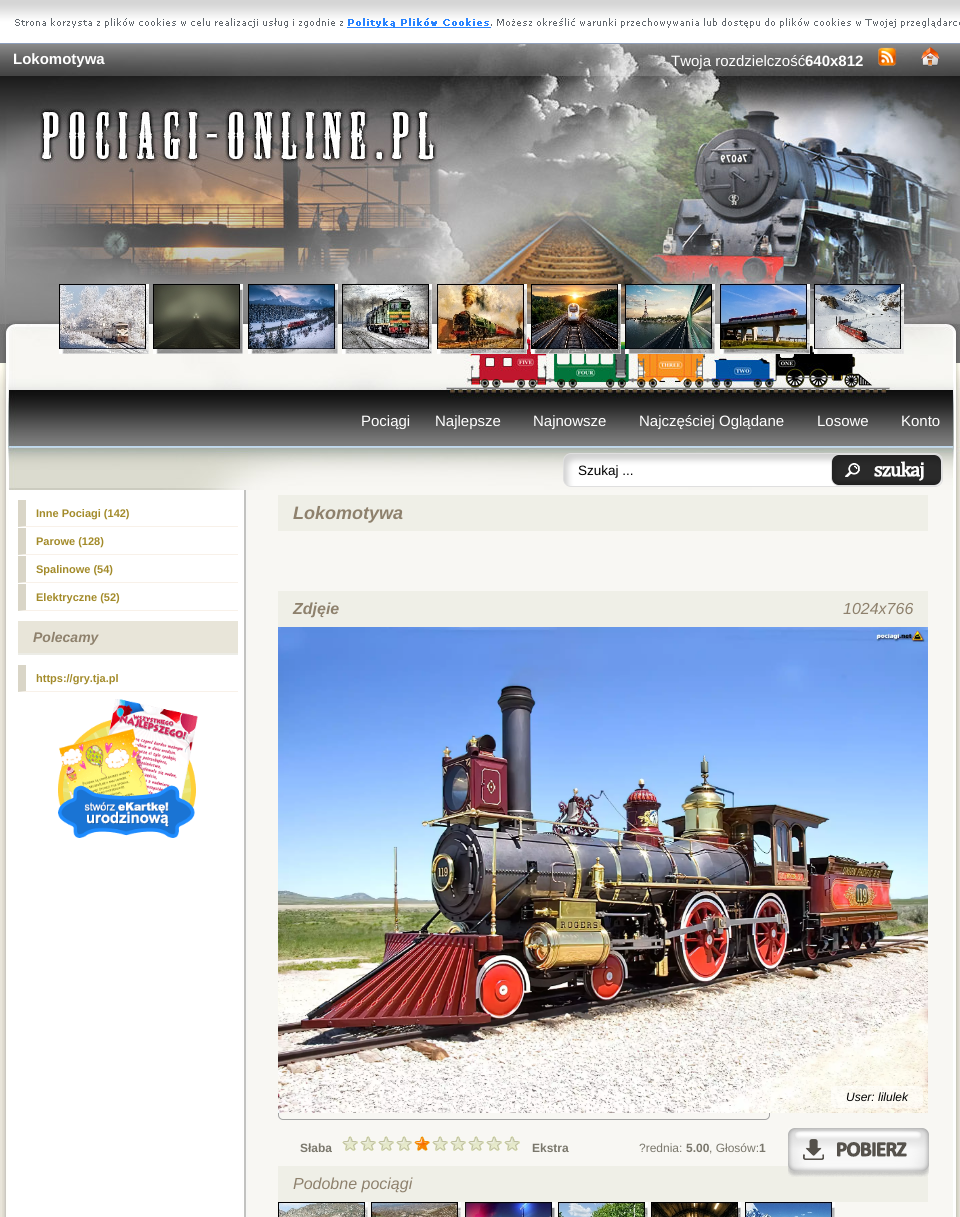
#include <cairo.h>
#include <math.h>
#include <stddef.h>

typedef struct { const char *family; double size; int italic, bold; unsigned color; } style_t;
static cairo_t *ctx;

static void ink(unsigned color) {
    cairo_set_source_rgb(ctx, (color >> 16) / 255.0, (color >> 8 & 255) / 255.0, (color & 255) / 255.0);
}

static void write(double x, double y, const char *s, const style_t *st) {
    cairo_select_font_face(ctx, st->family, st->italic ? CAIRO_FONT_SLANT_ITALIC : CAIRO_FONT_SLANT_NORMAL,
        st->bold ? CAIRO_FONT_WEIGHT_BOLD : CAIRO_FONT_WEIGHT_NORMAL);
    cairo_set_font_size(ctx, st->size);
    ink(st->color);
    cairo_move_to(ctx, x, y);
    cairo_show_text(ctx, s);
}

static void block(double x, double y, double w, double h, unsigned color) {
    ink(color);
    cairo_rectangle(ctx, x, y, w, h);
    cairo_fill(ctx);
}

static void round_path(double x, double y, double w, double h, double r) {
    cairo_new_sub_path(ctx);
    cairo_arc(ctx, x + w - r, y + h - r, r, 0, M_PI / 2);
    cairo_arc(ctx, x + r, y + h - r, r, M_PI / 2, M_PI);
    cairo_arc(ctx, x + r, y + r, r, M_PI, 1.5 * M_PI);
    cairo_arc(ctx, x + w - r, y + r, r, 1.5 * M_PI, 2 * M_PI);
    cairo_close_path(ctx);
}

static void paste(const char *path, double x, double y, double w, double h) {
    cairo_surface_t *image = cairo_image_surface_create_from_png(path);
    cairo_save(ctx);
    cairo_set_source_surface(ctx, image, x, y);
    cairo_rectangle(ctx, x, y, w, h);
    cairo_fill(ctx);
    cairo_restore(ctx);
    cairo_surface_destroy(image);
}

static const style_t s1 = {"Liberation Sans", 15, 0, 1, 0xffffff};
static const style_t s2 = {"Liberation Sans", 15, 0, 0, 0xffffff};
static const style_t s3 = {"Liberation Sans", 13.5, 0, 0, 0x000000};
static const style_t s4 = {"Liberation Sans", 11, 0, 1, 0xa38b2a};
static const style_t s5 = {"Liberation Sans", 14, 1, 1, 0x8e816d};
static const style_t s6 = {"Liberation Sans", 18, 1, 1, 0x8e816d};
static const style_t s7 = {"Liberation Sans", 16, 1, 1, 0x8e816d};
static const style_t s8 = {"Liberation Sans", 16, 1, 0, 0x8e816d};
static const style_t s9 = {"Liberation Sans", 12, 1, 0, 0x000000};
static const style_t s10 = {"Liberation Sans", 12, 0, 1, 0x7a776c};
static const style_t s11 = {"Liberation Sans", 12, 0, 0, 0x7a776c};

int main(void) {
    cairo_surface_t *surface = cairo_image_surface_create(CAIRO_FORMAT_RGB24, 960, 1217);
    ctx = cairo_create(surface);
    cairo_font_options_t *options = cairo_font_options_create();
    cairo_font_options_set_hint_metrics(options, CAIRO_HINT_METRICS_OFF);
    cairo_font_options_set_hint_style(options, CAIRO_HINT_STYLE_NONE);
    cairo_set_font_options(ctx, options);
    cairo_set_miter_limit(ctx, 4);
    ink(0xe9e5da);
    cairo_paint(ctx);
    paste("pic1.png", 0, 0, 960, 44);
    paste("pic2.png", 15, 18, 945, 10);
    paste("pic3.png", 0, 44, 960, 207);
    write(13, 64, "Lokomotywa", &s1);
    write(671, 66, "Twoja rozdzielczość", &s2);
    write(805, 66, "640x812", &s1);
    paste("pic4.png", 878, 47, 19, 19);
    paste("pic5.png", 921, 47, 19, 19);
    paste("pic6.png", 0, 251, 960, 139);
    paste("pic7.png", 59, 284, 90, 70);
    paste("pic8.png", 153, 284, 90, 70);
    paste("pic9.png", 248, 284, 90, 70);
    paste("pic10.png", 342, 284, 90, 70);
    paste("pic11.png", 437, 284, 90, 70);
    paste("pic12.png", 531, 284, 90, 70);
    paste("pic13.png", 625, 284, 90, 70);
    paste("pic14.png", 720, 284, 90, 70);
    paste("pic15.png", 814, 284, 90, 70);
    paste("pic16.png", 0, 390, 960, 100);
    write(361, 426, "Pociągi", &s2);
    write(435, 426, "Najlepsze", &s2);
    write(533, 426, "Najnowsze", &s2);
    write(639, 426, "Najczęściej Oglądane", &s2);
    write(817, 426, "Losowe", &s2);
    write(901, 426, "Konto", &s2);
    paste("pic17.png", 563, 453, 380, 34);
    write(578, 475, "Szukaj ...", &s3);
    paste("pic18.png", 2, 490, 958, 727);
    ink(0xf8f1e9);
    cairo_new_path(ctx);
    cairo_move_to(ctx, 238, 527);
    cairo_line_to(ctx, 18, 527);
    cairo_line_to(ctx, 26, 526);
    cairo_line_to(ctx, 238, 526);
    cairo_close_path(ctx);
    cairo_fill(ctx);
    ink(0xd9d5c7);
    cairo_new_path(ctx);
    cairo_move_to(ctx, 18, 527);
    cairo_line_to(ctx, 18, 500);
    cairo_line_to(ctx, 26, 500);
    cairo_line_to(ctx, 26, 526);
    cairo_close_path(ctx);
    cairo_fill(ctx);
    write(36, 517, "Inne Pociagi (142)", &s4);
    ink(0xf8f1e9);
    cairo_new_path(ctx);
    cairo_move_to(ctx, 238, 555);
    cairo_line_to(ctx, 18, 555);
    cairo_line_to(ctx, 26, 554);
    cairo_line_to(ctx, 238, 554);
    cairo_close_path(ctx);
    cairo_fill(ctx);
    ink(0xd9d5c7);
    cairo_new_path(ctx);
    cairo_move_to(ctx, 18, 555);
    cairo_line_to(ctx, 18, 528);
    cairo_line_to(ctx, 26, 528);
    cairo_line_to(ctx, 26, 554);
    cairo_close_path(ctx);
    cairo_fill(ctx);
    write(36, 545, "Parowe (128)", &s4);
    ink(0xf8f1e9);
    cairo_new_path(ctx);
    cairo_move_to(ctx, 238, 583);
    cairo_line_to(ctx, 18, 583);
    cairo_line_to(ctx, 26, 582);
    cairo_line_to(ctx, 238, 582);
    cairo_close_path(ctx);
    cairo_fill(ctx);
    ink(0xd9d5c7);
    cairo_new_path(ctx);
    cairo_move_to(ctx, 18, 583);
    cairo_line_to(ctx, 18, 556);
    cairo_line_to(ctx, 26, 556);
    cairo_line_to(ctx, 26, 582);
    cairo_close_path(ctx);
    cairo_fill(ctx);
    write(36, 573, "Spalinowe (54)", &s4);
    ink(0xf8f1e9);
    cairo_new_path(ctx);
    cairo_move_to(ctx, 238, 611);
    cairo_line_to(ctx, 18, 611);
    cairo_line_to(ctx, 26, 610);
    cairo_line_to(ctx, 238, 610);
    cairo_close_path(ctx);
    cairo_fill(ctx);
    ink(0xd9d5c7);
    cairo_new_path(ctx);
    cairo_move_to(ctx, 18, 611);
    cairo_line_to(ctx, 18, 584);
    cairo_line_to(ctx, 26, 584);
    cairo_line_to(ctx, 26, 610);
    cairo_close_path(ctx);
    cairo_fill(ctx);
    write(36, 601, "Elektryczne (52)", &s4);
    block(18, 621, 220, 32, 0xe8e5d9);
    block(18, 653, 220, 2, 0xecece6);
    write(33, 642, "Polecamy", &s5);
    ink(0xf8f1e9);
    cairo_new_path(ctx);
    cairo_move_to(ctx, 238, 692);
    cairo_line_to(ctx, 18, 692);
    cairo_line_to(ctx, 26, 691);
    cairo_line_to(ctx, 238, 691);
    cairo_close_path(ctx);
    cairo_fill(ctx);
    ink(0xd9d5c7);
    cairo_new_path(ctx);
    cairo_move_to(ctx, 18, 692);
    cairo_line_to(ctx, 18, 665);
    cairo_line_to(ctx, 26, 665);
    cairo_line_to(ctx, 26, 691);
    cairo_close_path(ctx);
    cairo_fill(ctx);
    write(36, 682, "https://gry.tja.pl", &s4);
    paste("pic19.png", 58, 699, 140, 139);
    block(278, 495, 650, 36, 0xefefe7);
    write(293, 519, "Lokomotywa", &s6);
    block(278, 591, 650, 36, 0xefefe7);
    write(293, 614, "Zdjęie", &s7);
    write(843, 614, "1024x766", &s8);
    round_path(278.5, 1108.5, 491, 11, 4.5);
    ink(0xa2a2a2);
    cairo_set_line_width(ctx, 1);
    cairo_stroke(ctx);
    paste("pic20.png", 278, 627, 650, 486);
    cairo_set_source_rgba(ctx, 1, 1, 1, 0.5);
    round_path(831, 1086, 92, 22, 5);
    cairo_fill(ctx);
    write(846, 1101, "User: lilulek", &s9);
    write(300, 1152, "Słaba", &s10);
    paste("pic21.png", 342, 1136, 16, 15);
    paste("pic21.png", 360, 1136, 16, 15);
    paste("pic21.png", 378, 1136, 16, 15);
    paste("pic21.png", 396, 1136, 16, 15);
    paste("pic22.png", 414, 1136, 16, 15);
    paste("pic21.png", 432, 1136, 16, 15);
    paste("pic21.png", 450, 1136, 16, 15);
    paste("pic21.png", 468, 1136, 16, 15);
    paste("pic21.png", 486, 1136, 16, 15);
    paste("pic21.png", 504, 1136, 16, 15);
    write(532, 1152, "Ekstra", &s10);
    write(639, 1152, "?rednia:", &s11);
    write(686, 1152, "5.00", &s10);
    write(709, 1152, ", Głosów:", &s11);
    write(759, 1152, "1", &s10);
    block(278, 1166, 650, 36, 0xefefe7);
    paste("pic23.png", 788, 1128, 141, 49);
    write(293, 1189, "Podobne pociągi", &s8);
    paste("pic24.png", 278, 1202, 90, 15);
    paste("pic25.png", 371, 1202, 90, 15);
    paste("pic26.png", 465, 1202, 90, 15);
    paste("pic27.png", 558, 1202, 90, 15);
    paste("pic28.png", 651, 1202, 90, 15);
    paste("pic29.png", 745, 1202, 90, 15);
    cairo_surface_write_to_png(surface, "screenshot.png");
    cairo_font_options_destroy(options);
    cairo_destroy(ctx);
    cairo_surface_destroy(surface);
    return 0;
}
